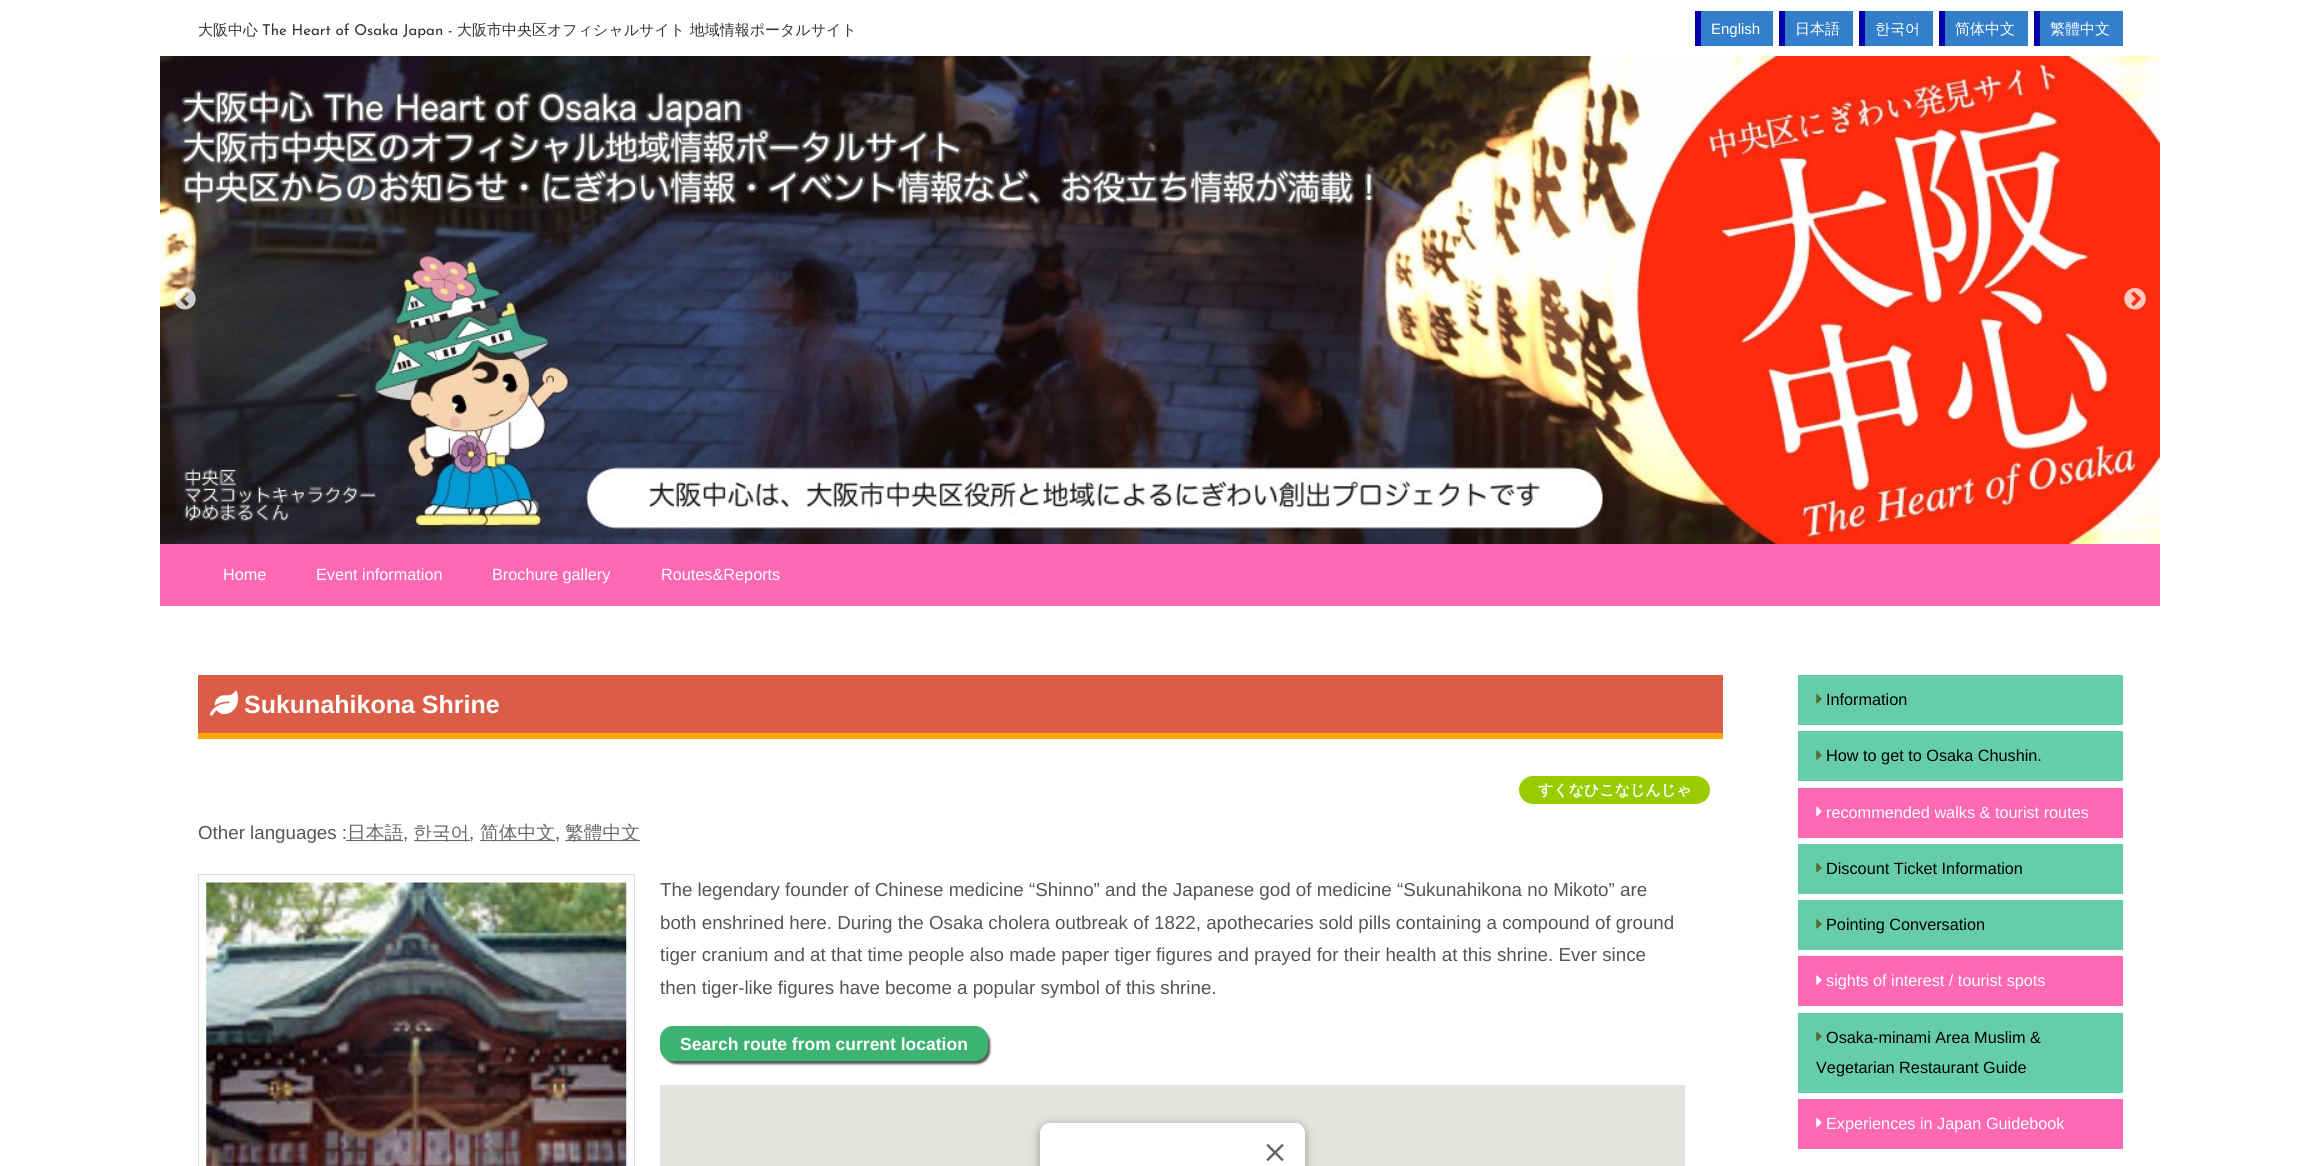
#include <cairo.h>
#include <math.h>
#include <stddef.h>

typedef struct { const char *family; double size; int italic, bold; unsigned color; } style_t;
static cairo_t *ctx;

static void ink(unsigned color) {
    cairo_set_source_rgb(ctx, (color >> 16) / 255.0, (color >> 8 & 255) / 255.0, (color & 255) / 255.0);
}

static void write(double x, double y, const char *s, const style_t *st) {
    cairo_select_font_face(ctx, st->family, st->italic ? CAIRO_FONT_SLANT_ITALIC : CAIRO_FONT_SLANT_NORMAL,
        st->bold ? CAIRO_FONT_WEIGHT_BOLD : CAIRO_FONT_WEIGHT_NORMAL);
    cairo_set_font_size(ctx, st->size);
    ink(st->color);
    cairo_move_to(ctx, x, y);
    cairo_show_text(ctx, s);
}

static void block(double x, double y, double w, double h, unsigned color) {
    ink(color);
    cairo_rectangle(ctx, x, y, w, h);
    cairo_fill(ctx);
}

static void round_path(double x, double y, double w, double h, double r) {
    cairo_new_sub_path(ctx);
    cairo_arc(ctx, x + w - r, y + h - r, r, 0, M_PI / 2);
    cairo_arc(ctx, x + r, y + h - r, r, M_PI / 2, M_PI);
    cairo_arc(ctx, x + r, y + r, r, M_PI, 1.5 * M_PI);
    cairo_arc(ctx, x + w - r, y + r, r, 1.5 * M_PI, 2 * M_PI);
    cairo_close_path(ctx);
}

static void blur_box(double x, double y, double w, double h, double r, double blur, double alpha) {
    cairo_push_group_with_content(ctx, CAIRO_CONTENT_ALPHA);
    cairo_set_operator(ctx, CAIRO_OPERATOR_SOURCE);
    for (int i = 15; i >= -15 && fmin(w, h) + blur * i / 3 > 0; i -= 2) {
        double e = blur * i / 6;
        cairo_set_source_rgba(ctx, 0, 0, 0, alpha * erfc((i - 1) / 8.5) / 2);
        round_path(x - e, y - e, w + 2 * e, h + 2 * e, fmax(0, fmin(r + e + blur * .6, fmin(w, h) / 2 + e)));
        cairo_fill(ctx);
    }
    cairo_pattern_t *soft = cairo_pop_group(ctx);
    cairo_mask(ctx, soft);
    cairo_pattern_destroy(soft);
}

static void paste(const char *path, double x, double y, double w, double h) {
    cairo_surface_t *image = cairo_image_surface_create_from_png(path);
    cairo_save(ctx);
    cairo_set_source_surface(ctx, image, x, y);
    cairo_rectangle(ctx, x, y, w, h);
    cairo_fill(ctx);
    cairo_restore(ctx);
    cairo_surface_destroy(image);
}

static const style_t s1 = {"WenQuanYi Zen Hei Medium", 15, 0, 0, 0x333333};
static const style_t s2 = {"Josefin Sans", 15, 0, 0, 0x333333};
static const style_t s3 = {"Liberation Sans", 15, 0, 0, 0xffffff};
static const style_t s4 = {"WenQuanYi Zen Hei Medium", 15, 0, 0, 0xffffff};
static const style_t s5 = {"Liberation Sans", 16.25, 0, 0, 0xffffff};
static const style_t s6 = {"Liberation Sans", 25, 0, 1, 0xffffff};
static const style_t s7 = {"WenQuanYi Zen Hei", 15, 0, 1, 0xffffff};
static const style_t s8 = {"Liberation Sans", 18.75, 0, 0, 0x555555};
static const style_t s9 = {"WenQuanYi Zen Hei Medium", 18.75, 0, 0, 0x696969};
static const style_t s10 = {"Liberation Sans", 17.5, 0, 1, 0xffffff};
static const style_t s11 = {"Liberation Sans", 16.25, 0, 0, 0x000000};

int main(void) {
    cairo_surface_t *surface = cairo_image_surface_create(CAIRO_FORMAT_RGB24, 2320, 1166);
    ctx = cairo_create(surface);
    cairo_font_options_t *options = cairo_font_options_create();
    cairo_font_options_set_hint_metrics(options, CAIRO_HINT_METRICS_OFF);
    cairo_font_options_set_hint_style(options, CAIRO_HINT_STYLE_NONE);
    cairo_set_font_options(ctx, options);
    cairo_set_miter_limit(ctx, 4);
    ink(0xffffff);
    cairo_paint(ctx);
    write(198, 35, "大阪中心", &s1);
    write(262, 35, "The Heart of Osaka Japan -", &s2);
    write(457, 35, "大阪市中央区オフィシャルサイト 地域情報ポータルサイト", &s1);
    block(1701, 11, 72, 35, 0x337fcc);
    write(1711, 34, "English", &s3);
    block(1695, 11, 6, 35, 0x0000aa);
    block(1785, 11, 68, 35, 0x337fcc);
    write(1795, 34, "日本語", &s4);
    block(1779, 11, 6, 35, 0x0000aa);
    block(1865, 11, 68, 35, 0x337fcc);
    write(1875, 34, "한국어", &s4);
    block(1859, 11, 6, 35, 0x0000aa);
    block(1945, 11, 83, 35, 0x337fcc);
    write(1955, 34, "简体中文", &s4);
    block(1939, 11, 6, 35, 0x0000aa);
    block(2040, 11, 83, 35, 0x337fcc);
    write(2050, 34, "繁體中文", &s4);
    block(2034, 11, 6, 35, 0x0000aa);
    paste("pic1.png", 160, 56, 2000, 488);
    paste("pic2.png", 174, 288, 22, 22);
    paste("pic3.png", 2124, 288, 22, 22);
    ink(0xff69b4);
    round_path(160, 544, 2000, 62, 1);
    cairo_fill(ctx);
    write(223, 580, "Home", &s5);
    write(316, 580, "Event information", &s5);
    write(492, 580, "Brochure gallery", &s5);
    write(661, 580, "Routes&Reports", &s5);
    block(198, 675, 1525, 58, 0xdc5d47);
    block(198, 733, 1525, 6, 0xffa500);
    paste("pic4.png", 210, 690, 29, 26);
    write(244, 713, "Sukunahikona Shrine", &s6);
    ink(0x99cc00);
    round_path(1519, 776, 191, 28, 14);
    cairo_fill(ctx);
    write(1538, 795, "すくなひこなじんじゃ", &s7);
    write(198, 839, "Other languages :", &s8);
    block(346, 840, 57, 1, 0x696969);
    write(347, 839, "日本語", &s9);
    write(403, 839, ",", &s8);
    block(414, 840, 56, 1, 0x696969);
    write(413, 839, "한국어", &s9);
    write(469, 839, ",", &s8);
    block(480, 840, 75, 1, 0x696969);
    write(480, 839, "简体中文", &s9);
    write(555, 839, ",", &s8);
    block(565, 840, 75, 1, 0x696969);
    write(565, 839, "繁體中文", &s9);
    cairo_rectangle(ctx, 198.5, 874.5, 436, 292);
    ink(0xdddddd);
    cairo_set_line_width(ctx, 1);
    cairo_stroke(ctx);
    paste("pic5.png", 206, 882, 421, 284);
    write(660, 896, "The legendary founder of Chinese medicine “Shinno” and the Japanese god of medicine “Sukunahikona no Mikoto” are", &s8);
    write(660, 929, "both enshrined here. During the Osaka cholera outbreak of 1822, apothecaries sold pills containing a compound of ground", &s8);
    write(660, 961, "tiger cranium and at that time people also made paper tiger figures and prayed for their health at this shrine. Ever since", &s8);
    write(660, 994, "then tiger-like figures have become a popular symbol of this shrine.", &s8);
    ink(0x555555);
    blur_box(663, 1029, 327, 35, 13, 1, 1);
    ink(0x3cb371);
    round_path(660.5, 1026.5, 327, 34, 12.5);
    cairo_fill_preserve(ctx);
    cairo_stroke(ctx);
    write(680, 1050, "Search route from current location", &s10);
    block(660, 1085, 1025, 81, 0xe5e3df);
    ink(0x000000);
    blur_box(1039, 1124, 267, 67, 11, 4.5, 0.3);
    ink(0xffffff);
    round_path(1040, 1123, 265, 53, 10);
    cairo_fill(ctx);
    paste("pic6.png", 1266, 1144, 18, 17);
    block(1798, 675, 325, 50, 0x66cdaa);
    paste("pic7.png", 1816, 694, 6, 10);
    write(1826, 705, "Information", &s11);
    block(1798, 731, 325, 50, 0x66cdaa);
    paste("pic8.png", 1816, 750, 6, 10);
    write(1826, 761, "How to get to Osaka Chushin.", &s11);
    block(1798, 788, 325, 50, 0xff69b4);
    paste("pic9.png", 1816, 806, 6, 11);
    write(1826, 818, "recommended walks & tourist routes", &s5);
    block(1798, 844, 325, 50, 0x66cdaa);
    paste("pic10.png", 1816, 863, 6, 10);
    write(1826, 874, "Discount Ticket Information", &s11);
    block(1798, 900, 325, 50, 0x66cdaa);
    paste("pic7.png", 1816, 919, 6, 10);
    write(1826, 930, "Pointing Conversation", &s11);
    block(1798, 956, 325, 50, 0xff69b4);
    paste("pic11.png", 1816, 975, 6, 10);
    write(1826, 986, "sights of interest / tourist spots", &s5);
    block(1798, 1013, 325, 80, 0x66cdaa);
    paste("pic12.png", 1816, 1031, 6, 11);
    write(1826, 1043, "Osaka-minami Area Muslim &", &s11);
    write(1816, 1073, "Vegetarian Restaurant Guide", &s11);
    block(1798, 1099, 325, 50, 0xff69b4);
    paste("pic13.png", 1816, 1118, 6, 10);
    write(1826, 1129, "Experiences in Japan Guidebook", &s5);
    cairo_surface_write_to_png(surface, "screenshot.png");
    cairo_font_options_destroy(options);
    cairo_destroy(ctx);
    cairo_surface_destroy(surface);
    return 0;
}
